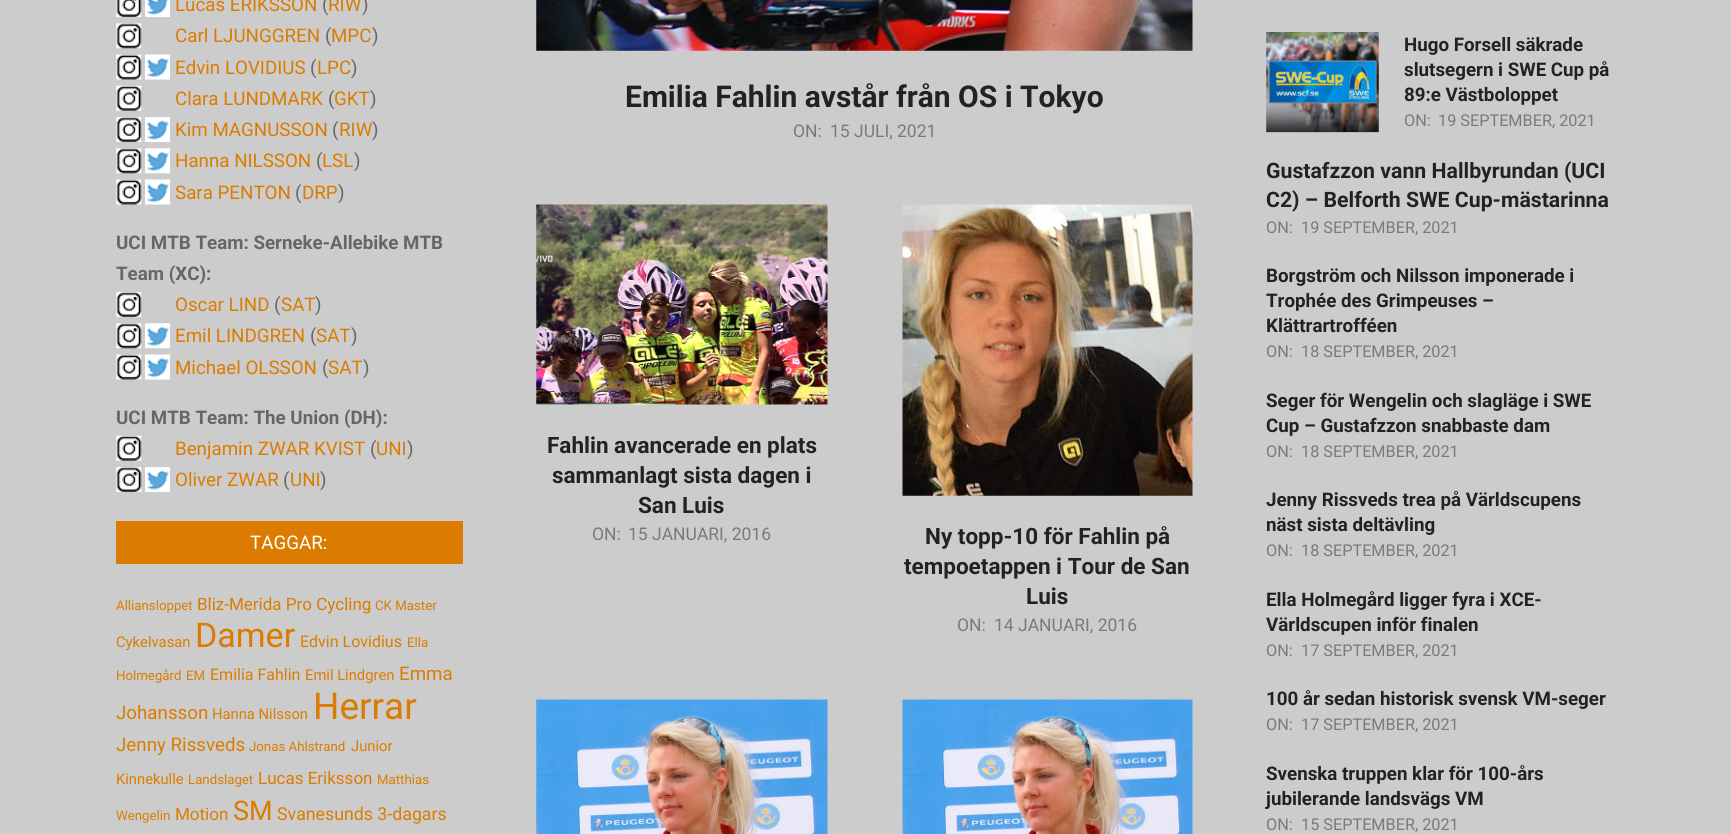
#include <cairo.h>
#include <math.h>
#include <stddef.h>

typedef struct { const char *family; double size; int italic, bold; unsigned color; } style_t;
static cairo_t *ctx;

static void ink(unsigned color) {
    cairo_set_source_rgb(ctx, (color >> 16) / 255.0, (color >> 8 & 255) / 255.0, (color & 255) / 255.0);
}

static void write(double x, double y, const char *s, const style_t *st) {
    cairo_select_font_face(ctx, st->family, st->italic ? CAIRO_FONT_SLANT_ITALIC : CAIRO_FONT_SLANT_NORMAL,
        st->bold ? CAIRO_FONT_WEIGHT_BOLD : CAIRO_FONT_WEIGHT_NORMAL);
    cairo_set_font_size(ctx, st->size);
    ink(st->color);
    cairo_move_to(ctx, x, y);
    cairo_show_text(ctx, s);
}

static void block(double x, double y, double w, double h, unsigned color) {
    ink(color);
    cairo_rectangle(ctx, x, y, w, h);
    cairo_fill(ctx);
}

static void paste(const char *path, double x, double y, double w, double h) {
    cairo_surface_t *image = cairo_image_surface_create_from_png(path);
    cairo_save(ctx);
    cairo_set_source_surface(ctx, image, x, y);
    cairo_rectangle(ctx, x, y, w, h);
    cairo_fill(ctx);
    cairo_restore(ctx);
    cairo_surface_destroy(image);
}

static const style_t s1 = {"Roboto", 18.75, 0, 0, 0xdb7c00};
static const style_t s2 = {"Roboto", 18.75, 0, 0, 0x666666};
static const style_t s3 = {"Roboto", 18.75, 0, 1, 0x666666};
static const style_t s4 = {"Roboto", 18.75, 0, 0, 0xffffff};
static const style_t s5 = {"Roboto", 13.25, 0, 0, 0xdb7c00};
static const style_t s6 = {"Roboto", 17, 0, 0, 0xdb7c00};
static const style_t s7 = {"Roboto", 14.75, 0, 0, 0xdb7c00};
static const style_t s8 = {"Roboto", 34, 0, 0, 0xdb7c00};
static const style_t s9 = {"Roboto", 16, 0, 0, 0xdb7c00};
static const style_t s10 = {"Roboto", 37, 0, 0, 0xdb7c00};
static const style_t s11 = {"Roboto", 27, 0, 0, 0xdb7c00};
static const style_t s12 = {"Roboto", 17.75, 0, 0, 0xdb7c00};
static const style_t s13 = {"Roboto", 30, 0, 1, 0x222222};
static const style_t s14 = {"Roboto", 17.5, 0, 0, 0x7a7a7a};
static const style_t s15 = {"Roboto", 22.5, 0, 1, 0x222222};
static const style_t s16 = {"Roboto", 18.75, 0, 1, 0x222222};
static const style_t s17 = {"Roboto", 16.25, 0, 0, 0x7a7a7a};
static const style_t s18 = {"Roboto", 21.25, 0, 1, 0x222222};

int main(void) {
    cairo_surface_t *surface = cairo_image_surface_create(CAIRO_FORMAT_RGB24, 1731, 834);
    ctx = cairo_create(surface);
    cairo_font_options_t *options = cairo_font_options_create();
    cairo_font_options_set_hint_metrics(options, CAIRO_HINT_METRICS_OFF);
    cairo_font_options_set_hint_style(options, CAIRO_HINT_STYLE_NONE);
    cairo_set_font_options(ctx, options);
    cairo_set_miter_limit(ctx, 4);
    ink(0xcccccc);
    cairo_paint(ctx);
    paste("pic1.png", 116, 0, 26, 17);
    paste("pic2.png", 145, 0, 25, 17);
    write(175, 11, "Lucas ERIKSSON", &s1);
    write(322, 11, "(", &s2);
    write(328, 11, "RIW", &s1);
    write(362, 11, ")", &s2);
    paste("pic3.png", 116, 23, 26, 26);
    write(175, 42, "Carl LJUNGGREN", &s1);
    write(325, 42, "(", &s2);
    write(331, 42, "MPC", &s1);
    write(372, 42, ")", &s2);
    paste("pic4.png", 116, 54, 26, 26);
    paste("pic5.png", 145, 54, 25, 26);
    write(175, 74, "Edvin LOVIDIUS", &s1);
    write(310, 74, "(", &s2);
    write(317, 74, "LPC", &s1);
    write(351, 74, ")", &s2);
    paste("pic6.png", 116, 85, 26, 26);
    write(175, 105, "Clara LUNDMARK", &s1);
    write(328, 105, "(", &s2);
    write(334, 105, "GKT", &s1);
    write(370, 105, ")", &s2);
    paste("pic7.png", 116, 117, 26, 25);
    paste("pic8.png", 145, 117, 25, 25);
    write(175, 136, "Kim MAGNUSSON", &s1);
    write(332, 136, "(", &s2);
    write(339, 136, "RIW", &s1);
    write(372, 136, ")", &s2);
    paste("pic3.png", 116, 148, 26, 26);
    paste("pic9.png", 145, 148, 25, 26);
    write(175, 167, "Hanna NILSSON", &s1);
    write(316, 167, "(", &s2);
    write(322, 167, "LSL", &s1);
    write(354, 167, ")", &s2);
    paste("pic4.png", 116, 179, 26, 26);
    paste("pic5.png", 145, 179, 25, 26);
    write(175, 199, "Sara PENTON", &s1);
    write(295, 199, "(", &s2);
    write(302, 199, "DRP", &s1);
    write(338, 199, ")", &s2);
    write(116, 249, "UCI MTB Team: Serneke-Allebike MTB", &s3);
    write(116, 280, "Team (XC):", &s3);
    paste("pic7.png", 116, 292, 26, 25);
    write(175, 311, "Oscar LIND", &s1);
    write(274, 311, "(", &s2);
    write(281, 311, "SAT", &s1);
    write(315, 311, ")", &s2);
    paste("pic3.png", 116, 323, 26, 26);
    paste("pic9.png", 145, 323, 25, 26);
    write(175, 342, "Emil LINDGREN", &s1);
    write(310, 342, "(", &s2);
    write(316, 342, "SAT", &s1);
    write(351, 342, ")", &s2);
    paste("pic4.png", 116, 354, 26, 26);
    paste("pic5.png", 145, 354, 25, 26);
    write(175, 374, "Michael OLSSON", &s1);
    write(322, 374, "(", &s2);
    write(328, 374, "SAT", &s1);
    write(363, 374, ")", &s2);
    write(116, 424, "UCI MTB Team: The Union (DH):", &s3);
    paste("pic6.png", 116, 435, 26, 26);
    write(175, 455, "Benjamin ZWAR KVIST", &s1);
    write(370, 455, "(", &s2);
    write(376, 455, "UNI", &s1);
    write(407, 455, ")", &s2);
    paste("pic7.png", 116, 467, 26, 25);
    paste("pic8.png", 145, 467, 25, 25);
    write(175, 486, "Oliver ZWAR", &s1);
    write(283, 486, "(", &s2);
    write(290, 486, "UNI", &s1);
    write(320, 486, ")", &s2);
    block(116, 521, 347, 43, 0xdb7c00);
    write(250, 549, "TAGGAR:", &s4);
    write(116, 610, "Alliansloppet", &s5);
    write(197, 610, "Bliz-Merida Pro Cycling", &s6);
    write(375, 610, "CK Master", &s5);
    write(116, 647, "Cykelvasan", &s7);
    write(195, 647, "Damer", &s8);
    write(300, 647, "Edvin Lovidius", &s9);
    write(407, 647, "Ella", &s5);
    write(116, 680, "Holmegård", &s5);
    write(186, 680, "EM", &s5);
    write(210, 680, "Emilia Fahlin", &s9);
    write(305, 680, "Emil Lindgren", &s7);
    write(399, 680, "Emma", &s1);
    write(116, 719, "Johansson", &s1);
    write(212, 719, "Hanna Nilsson", &s7);
    write(313, 719, "Herrar", &s10);
    write(116, 751, "Jenny Rissveds", &s1);
    write(249, 751, "Jonas Ahlstrand", &s5);
    write(351, 751, "Junior", &s7);
    write(116, 784, "Kinnekulle", &s7);
    write(188, 784, "Landslaget", &s5);
    write(258, 784, "Lucas Eriksson", &s6);
    write(377, 784, "Matthias", &s5);
    write(116, 820, "Wengelin", &s5);
    write(175, 820, "Motion", &s6);
    write(233, 820, "SM", &s11);
    write(277, 820, "Svanesunds 3-dagars", &s12);
    paste("pic10.png", 536, 0, 657, 51);
    write(625, 107, "Emilia Fahlin avstår från OS i Tokyo", &s13);
    write(793, 137, "ON:", &s14);
    write(830, 137, "15 JULI, 2021", &s14);
    paste("pic11.png", 536, 204, 292, 201);
    write(547, 453, "Fahlin avancerade en plats", &s15);
    write(552, 483, "sammanlagt sista dagen i", &s15);
    write(638, 513, "San Luis", &s15);
    write(592, 540, "ON:", &s14);
    write(628, 540, "15 JANUARI, 2016", &s14);
    paste("pic12.png", 902, 204, 291, 292);
    write(925, 544, "Ny topp-10 för Fahlin på", &s15);
    write(904, 574, "tempoetappen i Tour de San", &s15);
    write(1026, 604, "Luis", &s15);
    write(957, 631, "ON:", &s14);
    write(994, 631, "14 JANUARI, 2016", &s14);
    paste("pic13.png", 536, 699, 292, 135);
    paste("pic14.png", 902, 699, 291, 135);
    block(1266, 33, 113, 100, 0xb8b8b8);
    paste("pic15.png", 1266, 32, 113, 100);
    write(1404, 51, "Hugo Forsell säkrade", &s16);
    write(1404, 76, "slutsegern i SWE Cup på", &s16);
    write(1404, 101, "89:e Västboloppet", &s16);
    write(1404, 126, "ON:", &s17);
    write(1438, 126, "19 SEPTEMBER, 2021", &s17);
    write(1266, 178, "Gustafzzon vann Hallbyrundan (UCI", &s18);
    write(1266, 207, "C2) – Belforth SWE Cup-mästarinna", &s18);
    write(1266, 233, "ON:", &s17);
    write(1301, 233, "19 SEPTEMBER, 2021", &s17);
    write(1266, 282, "Borgström och Nilsson imponerade i", &s16);
    write(1266, 307, "Trophée des Grimpeuses –", &s16);
    write(1266, 332, "Klättrartrofféen", &s16);
    write(1266, 357, "ON:", &s17);
    write(1301, 357, "18 SEPTEMBER, 2021", &s17);
    write(1266, 407, "Seger för Wengelin och slagläge i SWE", &s16);
    write(1266, 432, "Cup – Gustafzzon snabbaste dam", &s16);
    write(1266, 457, "ON:", &s17);
    write(1301, 457, "18 SEPTEMBER, 2021", &s17);
    write(1266, 506, "Jenny Rissveds trea på Världscupens", &s16);
    write(1266, 531, "näst sista deltävling", &s16);
    write(1266, 556, "ON:", &s17);
    write(1301, 556, "18 SEPTEMBER, 2021", &s17);
    write(1266, 606, "Ella Holmegård ligger fyra i XCE-", &s16);
    write(1266, 631, "Världscupen inför finalen", &s16);
    write(1266, 656, "ON:", &s17);
    write(1301, 656, "17 SEPTEMBER, 2021", &s17);
    write(1266, 705, "100 år sedan historisk svensk VM-seger", &s16);
    write(1266, 730, "ON:", &s17);
    write(1301, 730, "17 SEPTEMBER, 2021", &s17);
    write(1266, 780, "Svenska truppen klar för 100-års", &s16);
    write(1266, 805, "jubilerande landsvägs VM", &s16);
    write(1266, 830, "ON:", &s17);
    write(1301, 830, "15 SEPTEMBER, 2021", &s17);
    cairo_surface_write_to_png(surface, "screenshot.png");
    cairo_font_options_destroy(options);
    cairo_destroy(ctx);
    cairo_surface_destroy(surface);
    return 0;
}
